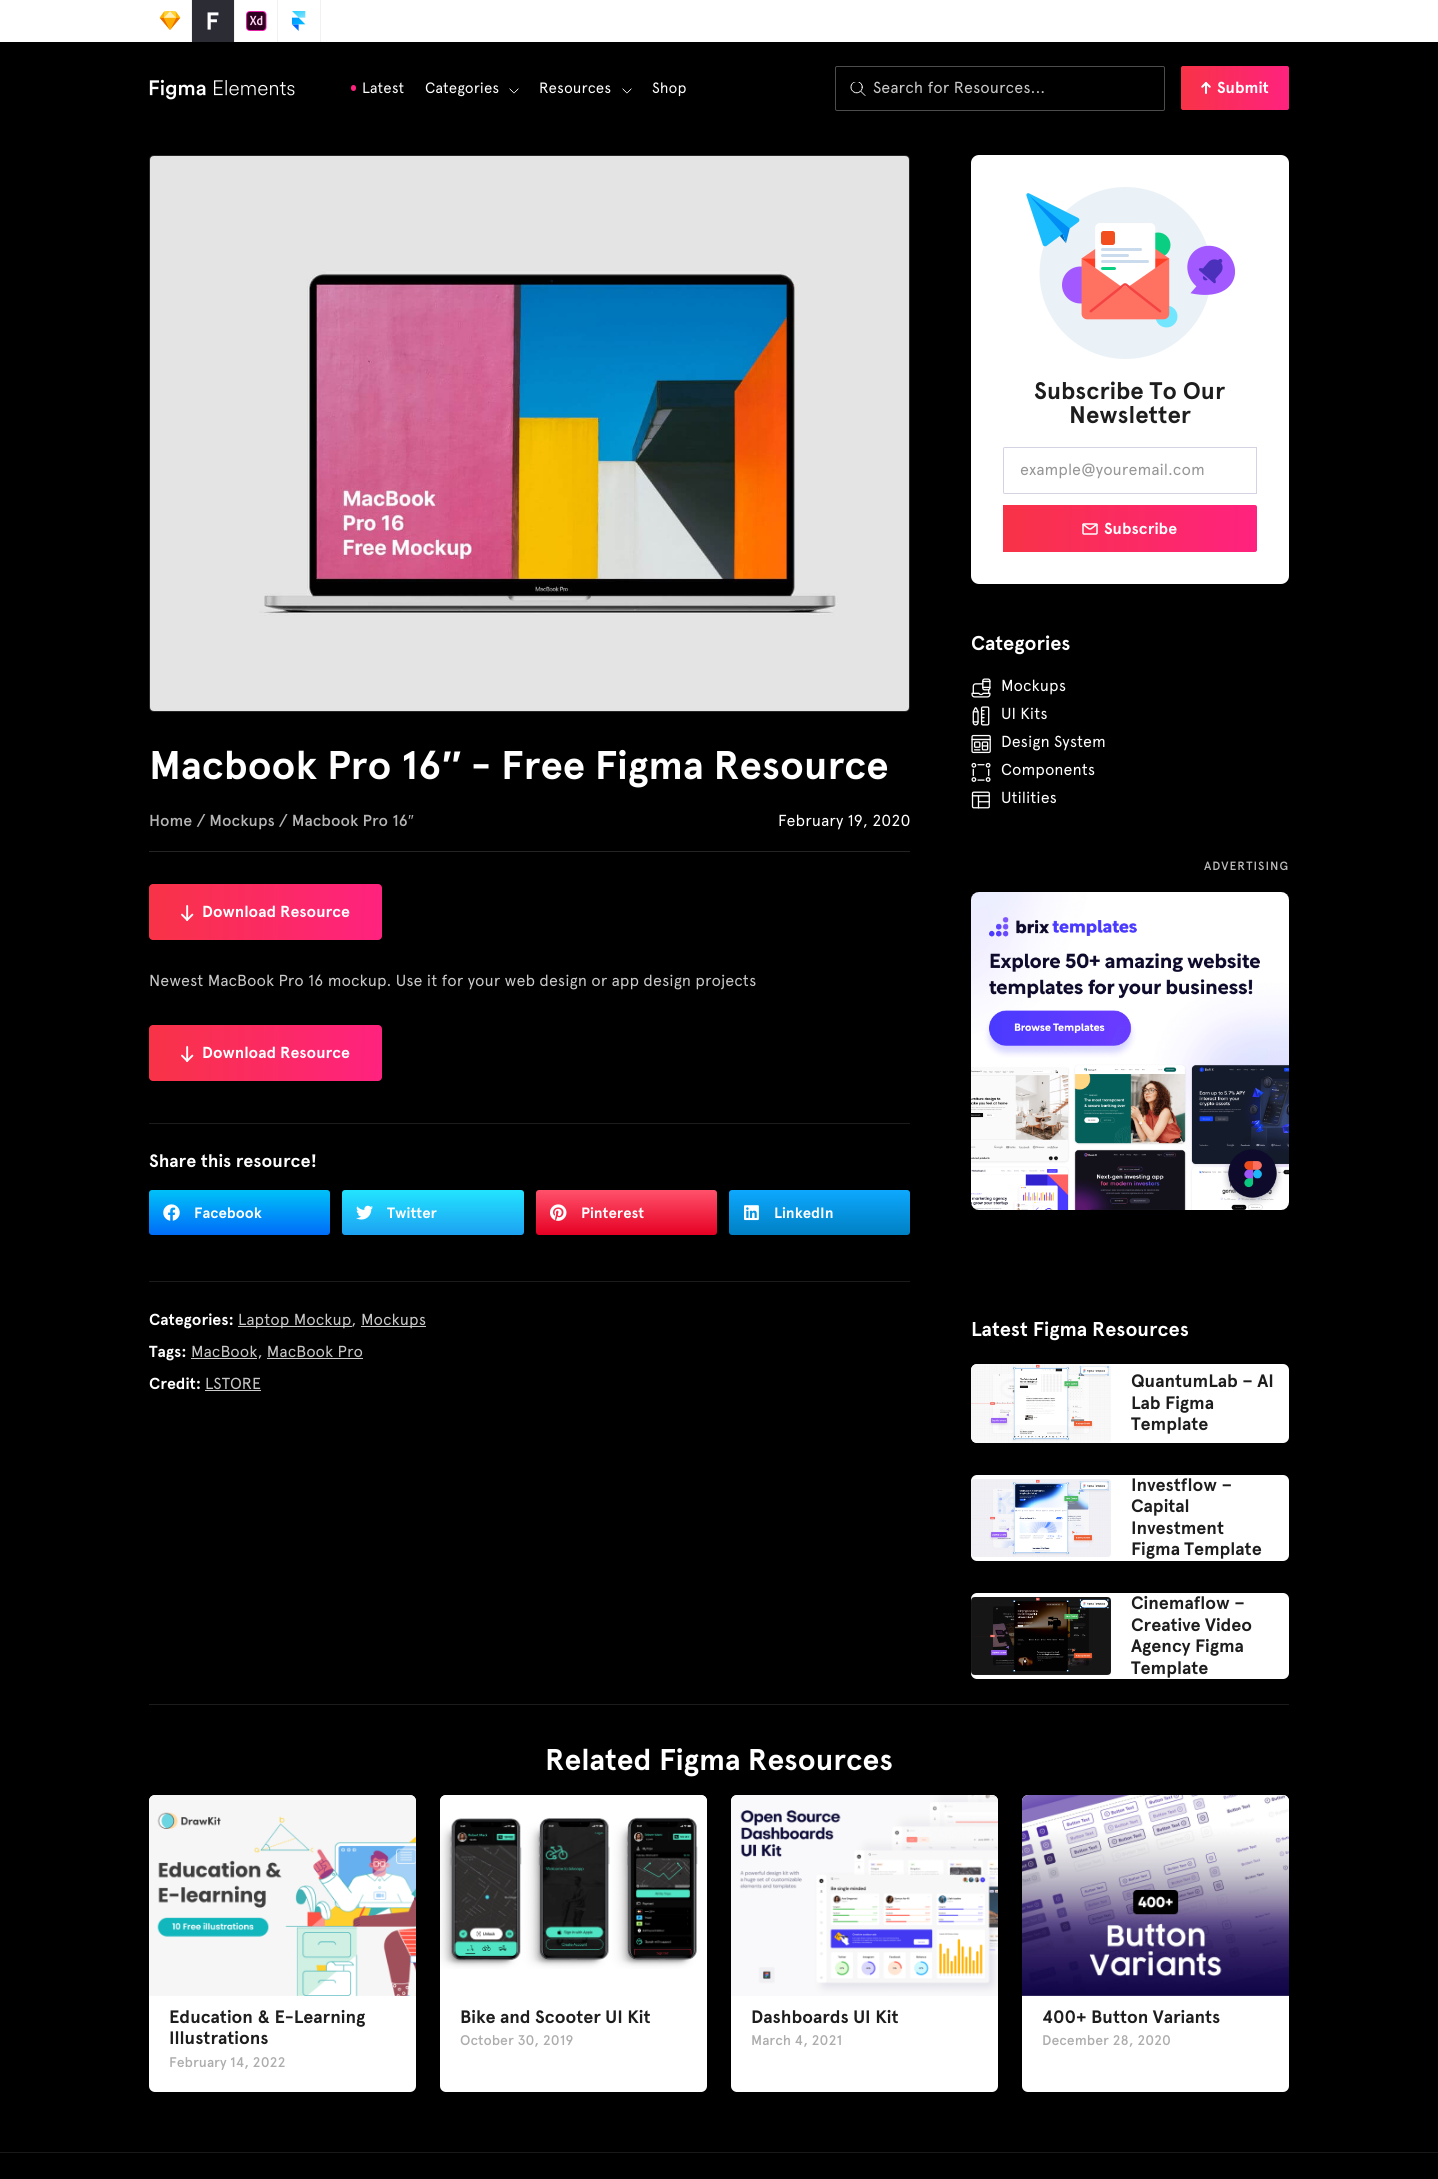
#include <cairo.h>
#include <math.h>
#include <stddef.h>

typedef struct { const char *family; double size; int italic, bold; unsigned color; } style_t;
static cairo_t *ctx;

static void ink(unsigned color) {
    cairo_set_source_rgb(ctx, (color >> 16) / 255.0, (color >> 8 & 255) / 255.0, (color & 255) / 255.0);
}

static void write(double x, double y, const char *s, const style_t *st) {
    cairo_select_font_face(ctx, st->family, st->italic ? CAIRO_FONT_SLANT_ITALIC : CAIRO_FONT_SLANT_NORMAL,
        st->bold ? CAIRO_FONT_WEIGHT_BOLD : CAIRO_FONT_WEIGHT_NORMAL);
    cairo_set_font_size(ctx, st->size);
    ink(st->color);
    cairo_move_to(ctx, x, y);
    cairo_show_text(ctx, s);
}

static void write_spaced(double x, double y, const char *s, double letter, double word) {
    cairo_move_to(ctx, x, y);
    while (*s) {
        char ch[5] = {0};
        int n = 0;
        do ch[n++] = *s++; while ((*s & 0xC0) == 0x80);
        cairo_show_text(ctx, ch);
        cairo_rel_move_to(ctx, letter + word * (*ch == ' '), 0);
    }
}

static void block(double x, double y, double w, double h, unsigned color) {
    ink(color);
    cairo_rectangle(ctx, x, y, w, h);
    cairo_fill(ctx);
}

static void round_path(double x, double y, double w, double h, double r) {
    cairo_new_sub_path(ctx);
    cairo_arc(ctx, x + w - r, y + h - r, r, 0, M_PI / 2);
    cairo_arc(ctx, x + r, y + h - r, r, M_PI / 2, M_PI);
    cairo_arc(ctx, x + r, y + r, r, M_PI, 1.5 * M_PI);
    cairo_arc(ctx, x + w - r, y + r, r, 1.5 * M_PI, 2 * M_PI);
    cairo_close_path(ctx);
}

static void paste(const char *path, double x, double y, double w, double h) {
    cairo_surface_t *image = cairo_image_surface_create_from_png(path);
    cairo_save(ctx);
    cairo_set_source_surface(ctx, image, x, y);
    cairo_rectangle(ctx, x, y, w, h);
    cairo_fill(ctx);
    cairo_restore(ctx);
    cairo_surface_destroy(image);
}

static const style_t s1 = {"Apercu", 15, 0, 0, 0xffffff};
static const style_t s2 = {"Apercu", 16, 0, 0, 0xc9c9c9};
static const style_t s3 = {"Apercu", 16, 0, 1, 0xffffff};
static const style_t s4 = {"Apercu", 40, 0, 1, 0xffffff};
static const style_t s5 = {"Liberation Sans", 40, 0, 1, 0xffffff};
static const style_t s6 = {"Apercu Medium", 16, 0, 0, 0xb5b5b5};
static const style_t s7 = {"Liberation Sans", 16, 0, 0, 0xb5b5b5};
static const style_t s8 = {"Apercu", 16, 0, 0, 0xffffff};
static const style_t s9 = {"Apercu", 18, 0, 1, 0xffffff};
static const style_t s10 = {"Apercu", 15, 0, 1, 0xffffff};
static const style_t s11 = {"Apercu", 24, 0, 1, 0x1d1d1d};
static const style_t s12 = {"Apercu", 16, 0, 0, 0x969696};
static const style_t s13 = {"Apercu", 20, 0, 1, 0xffffff};
static const style_t s14 = {"Apercu", 18, 0, 1, 0x1d1d1d};
static const style_t s15 = {"Apercu", 30, 0, 1, 0xffffff};
static const style_t s16 = {"Apercu Medium", 14, 0, 0, 0xadadad};

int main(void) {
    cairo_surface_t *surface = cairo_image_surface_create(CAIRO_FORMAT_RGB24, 1438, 2179);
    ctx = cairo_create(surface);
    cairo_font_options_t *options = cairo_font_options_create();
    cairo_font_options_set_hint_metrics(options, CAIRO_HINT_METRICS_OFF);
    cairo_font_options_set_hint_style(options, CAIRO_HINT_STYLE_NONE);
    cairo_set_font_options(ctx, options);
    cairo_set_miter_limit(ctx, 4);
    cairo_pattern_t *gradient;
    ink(0x000000);
    cairo_paint(ctx);
    block(0, 0, 1438, 42, 0xffffff);
    paste("pic1.png", 159, 11, 22, 19);
    block(191, 0, 1, 42, 0xf1f1f1);
    block(192, 0, 42, 42, 0x2c2c34);
    paste("pic2.png", 207, 12, 12, 18);
    block(234, 0, 1, 42, 0xf1f1f1);
    paste("pic3.png", 246, 11, 21, 20);
    block(277, 0, 1, 42, 0xf1f1f1);
    paste("pic4.png", 292, 11, 14, 20);
    block(320, 0, 1, 42, 0xf1f1f1);
    paste("pic5.png", 149, 79, 146, 21);
    ink(0xff227f);
    round_path(351, 85, 5, 6, 2.5);
    cairo_fill(ctx);
    write(362, 93, "Latest", &s1);
    write(425, 93, "Categories", &s1);
    paste("pic6.png", 509, 88, 10, 6);
    write(539, 93, "Resources", &s1);
    paste("pic6.png", 622, 88, 10, 6);
    write(652, 93, "Shop", &s1);
    round_path(835.5, 66.5, 329, 44, 1.5);
    ink(0x4d4d4d);
    cairo_set_line_width(ctx, 1);
    cairo_stroke(ctx);
    paste("pic7.png", 850, 82, 16, 14);
    write(873, 93, "Search for Resources...", &s2);
    gradient = cairo_pattern_create_linear(1180, 87, 1290, 89);
    cairo_pattern_add_color_stop_rgba(gradient, 0, 0.973, 0.2, 0.275, 1);
    cairo_pattern_add_color_stop_rgba(gradient, 1, 1, 0.133, 0.498, 1);
    cairo_set_source(ctx, gradient);
    cairo_pattern_destroy(gradient);
    round_path(1181, 66, 108, 44, 2);
    cairo_fill(ctx);
    paste("pic8.png", 1201, 82, 10, 12);
    write(1217, 93, "Submit", &s3);
    round_path(149.5, 155.5, 760, 556, 4.5);
    ink(0x262626);
    cairo_stroke(ctx);
    paste("pic9.png", 150, 156, 759, 555);
    write(149, 779, "Macbook Pro 16", &s4);
    write(442, 779, "″", &s5);
    write(471, 779, "- Free Figma Resource", &s4);
    block(149, 851, 761, 1, 0x242424);
    write(149, 826, "Home / Mockups / Macbook Pro 16", &s6);
    write(408, 826, "″", &s7);
    write(778, 826, "February 19, 2020", &s8);
    gradient = cairo_pattern_create_linear(148, 909, 383, 915);
    cairo_pattern_add_color_stop_rgba(gradient, 0, 0.973, 0.2, 0.275, 1);
    cairo_pattern_add_color_stop_rgba(gradient, 1, 1, 0.133, 0.498, 1);
    cairo_set_source(ctx, gradient);
    cairo_pattern_destroy(gradient);
    round_path(149, 884, 233, 56, 4);
    cairo_fill(ctx);
    paste("pic10.png", 181, 905, 13, 16);
    write(202, 917, "Download Resource", &s3);
    write(149, 986, "Newest MacBook Pro 16 mockup. Use it for your web design or app design projects", &s2);
    gradient = cairo_pattern_create_linear(148, 1050, 383, 1056);
    cairo_pattern_add_color_stop_rgba(gradient, 0, 0.973, 0.2, 0.275, 1);
    cairo_pattern_add_color_stop_rgba(gradient, 1, 1, 0.133, 0.498, 1);
    cairo_set_source(ctx, gradient);
    cairo_pattern_destroy(gradient);
    round_path(149, 1025, 233, 56, 4);
    cairo_fill(ctx);
    paste("pic10.png", 181, 1046, 13, 16);
    write(202, 1058, "Download Resource", &s3);
    block(149, 1123, 761, 1, 0x1c1c1c);
    write(149, 1167, "Share this resource!", &s9);
    gradient = cairo_pattern_create_linear(240, 1190, 240, 1235);
    cairo_pattern_add_color_stop_rgba(gradient, 0, 0, 0.757, 0.973, 1);
    cairo_pattern_add_color_stop_rgba(gradient, 1, 0, 0.424, 0.973, 1);
    cairo_set_source(ctx, gradient);
    cairo_pattern_destroy(gradient);
    round_path(149, 1190, 181, 45, 3);
    cairo_fill(ctx);
    paste("pic11.png", 163, 1204, 17, 17);
    write(194, 1218, "Facebook", &s10);
    gradient = cairo_pattern_create_linear(433, 1190, 433, 1235);
    cairo_pattern_add_color_stop_rgba(gradient, 0, 0.133, 0.894, 1, 1);
    cairo_pattern_add_color_stop_rgba(gradient, 1, 0.114, 0.631, 0.949, 1);
    cairo_set_source(ctx, gradient);
    cairo_pattern_destroy(gradient);
    round_path(342, 1190, 182, 45, 3);
    cairo_fill(ctx);
    paste("pic12.png", 356, 1205, 17, 15);
    write(387, 1218, "Twitter", &s10);
    gradient = cairo_pattern_create_linear(627, 1190, 627, 1235);
    cairo_pattern_add_color_stop_rgba(gradient, 0, 1, 0.318, 0.42, 1);
    cairo_pattern_add_color_stop_rgba(gradient, 1, 0.902, 0, 0.137, 1);
    cairo_set_source(ctx, gradient);
    cairo_pattern_destroy(gradient);
    round_path(536, 1190, 181, 45, 3);
    cairo_fill(ctx);
    paste("pic13.png", 550, 1204, 17, 17);
    write(581, 1218, "Pinterest", &s10);
    gradient = cairo_pattern_create_linear(820, 1190, 820, 1235);
    cairo_pattern_add_color_stop_rgba(gradient, 0, 0.051, 0.624, 0.925, 1);
    cairo_pattern_add_color_stop_rgba(gradient, 0, 0.051, 0.659, 1, 1);
    cairo_pattern_add_color_stop_rgba(gradient, 1, 0, 0.502, 0.765, 1);
    cairo_set_source(ctx, gradient);
    cairo_pattern_destroy(gradient);
    round_path(729, 1190, 181, 45, 3);
    cairo_fill(ctx);
    paste("pic14.png", 744, 1205, 15, 16);
    write(774, 1218, "LinkedIn", &s10);
    block(149, 1281, 761, 1, 0x1c1c1c);
    write(149, 1325, "Categories:", &s3);
    block(238, 1326, 114, 1, 0xcccccc);
    write(238, 1325, "Laptop Mockup,", &s2);
    block(361, 1326, 65, 1, 0xcccccc);
    write(361, 1325, "Mockups", &s2);
    write(149, 1357, "Tags:", &s3);
    block(191, 1358, 66, 1, 0xcccccc);
    write(191, 1357, "MacBook, MacBook Pro", &s2);
    block(267, 1358, 96, 1, 0xcccccc);
    write(149, 1389, "Credit:", &s3);
    write(205, 1389, "LSTORE", &s2);
    block(205, 1390, 56, 1, 0xcccccc);
    ink(0xffffff);
    round_path(971, 155, 318, 429, 8);
    cairo_fill(ctx);
    paste("pic15.png", 1026, 187, 210, 172);
    write(1034, 399, "Subscribe To Our", &s11);
    write(1069, 423, "Newsletter", &s11);
    cairo_new_path(ctx);
    cairo_move_to(ctx, 1005, 447.5);
    cairo_line_to(ctx, 1256.5, 447.5);
    cairo_line_to(ctx, 1256.5, 493.5);
    cairo_line_to(ctx, 1005, 493.5);
    cairo_curve_to(ctx, 1004, 493.5, 1003.5, 493, 1003.5, 492);
    cairo_line_to(ctx, 1003.5, 449);
    cairo_curve_to(ctx, 1003.5, 448, 1004, 447.5, 1005, 447.5);
    cairo_close_path(ctx);
    ink(0xd3d3e3);
    cairo_stroke(ctx);
    write(1020, 475, "example@youremail.com", &s12);
    gradient = cairo_pattern_create_linear(1002, 525, 1258, 532);
    cairo_pattern_add_color_stop_rgba(gradient, 0, 0.973, 0.2, 0.275, 1);
    cairo_pattern_add_color_stop_rgba(gradient, 1, 1, 0.133, 0.498, 1);
    cairo_set_source(ctx, gradient);
    cairo_pattern_destroy(gradient);
    cairo_new_path(ctx);
    cairo_move_to(ctx, 1003, 505);
    cairo_line_to(ctx, 1255, 505);
    cairo_curve_to(ctx, 1256, 505, 1257, 506, 1257, 507);
    cairo_line_to(ctx, 1257, 550);
    cairo_curve_to(ctx, 1257, 551, 1256, 552, 1255, 552);
    cairo_line_to(ctx, 1003, 552);
    cairo_close_path(ctx);
    cairo_fill(ctx);
    paste("pic16.png", 1082, 523, 16, 12);
    write(1104, 534, "Subscribe", &s3);
    write(971, 650, "Categories", &s13);
    paste("pic17.png", 971, 678, 20, 20);
    write(1001, 691, "Mockups", &s8);
    paste("pic18.png", 972, 706, 18, 20);
    write(1001, 719, "UI Kits", &s8);
    paste("pic19.png", 971, 734, 20, 20);
    write(1001, 747, "Design System", &s8);
    paste("pic20.png", 971, 762, 20, 20);
    write(1001, 775, "Components", &s8);
    paste("pic21.png", 971, 791, 19, 18);
    write(1001, 803, "Utilities", &s8);
    cairo_select_font_face(ctx, "Apercu Medium", CAIRO_FONT_SLANT_NORMAL, CAIRO_FONT_WEIGHT_NORMAL);
    cairo_set_font_size(ctx, 12);
    ink(0xbdbbbb);
    write_spaced(1204, 870, "ADVERTISING", 1, 0);
    paste("pic22.png", 971, 892, 318, 318);
    write(971, 1336, "Latest Figma Resources", &s13);
    round_path(971, 1364, 318, 79, 6);
    cairo_fill(ctx);
    paste("pic23.png", 971, 1364, 140, 79);
    write(1131, 1387, "QuantumLab – AI", &s14);
    write(1131, 1409, "Lab Figma", &s14);
    write(1131, 1430, "Template", &s14);
    ink(0xffffff);
    round_path(971, 1475, 318, 86, 6);
    cairo_fill(ctx);
    paste("pic24.png", 971, 1479, 140, 78);
    write(1131, 1491, "Investflow –", &s14);
    write(1131, 1512, "Capital", &s14);
    write(1131, 1534, "Investment", &s14);
    write(1131, 1555, "Figma Template", &s14);
    ink(0xffffff);
    round_path(971, 1593, 318, 86, 6);
    cairo_fill(ctx);
    paste("pic25.png", 971, 1597, 140, 78);
    write(1131, 1609, "Cinemaflow –", &s14);
    write(1131, 1631, "Creative Video", &s14);
    write(1131, 1652, "Agency Figma", &s14);
    write(1131, 1674, "Template", &s14);
    block(149, 1704, 1140, 1, 0x1c1c1c);
    write(545, 1770, "Related Figma Resources", &s15);
    round_path(149, 1795, 267, 297, 6);
    cairo_fill(ctx);
    paste("pic26.png", 149, 1795, 267, 201);
    write(169, 2023, "Education & E-Learning", &s14);
    write(169, 2044, "Illustrations", &s14);
    write(169, 2067, "February 14, 2022", &s16);
    ink(0xffffff);
    round_path(440, 1795, 267, 297, 6);
    cairo_fill(ctx);
    paste("pic27.png", 440, 1795, 267, 174);
    write(460, 2023, "Bike and Scooter UI Kit", &s14);
    write(460, 2045, "October 30, 2019", &s16);
    ink(0xffffff);
    round_path(731, 1795, 267, 297, 6);
    cairo_fill(ctx);
    paste("pic28.png", 731, 1795, 267, 201);
    write(751, 2023, "Dashboards UI Kit", &s14);
    write(751, 2045, "March 4, 2021", &s16);
    ink(0xffffff);
    round_path(1022, 1795, 267, 297, 6);
    cairo_fill(ctx);
    paste("pic29.png", 1022, 1795, 267, 201);
    write(1042, 2023, "400+ Button Variants", &s14);
    write(1042, 2045, "December 28, 2020", &s16);
    block(0, 2152, 1438, 1, 0x191919);
    cairo_surface_write_to_png(surface, "screenshot.png");
    cairo_font_options_destroy(options);
    cairo_destroy(ctx);
    cairo_surface_destroy(surface);
    return 0;
}
